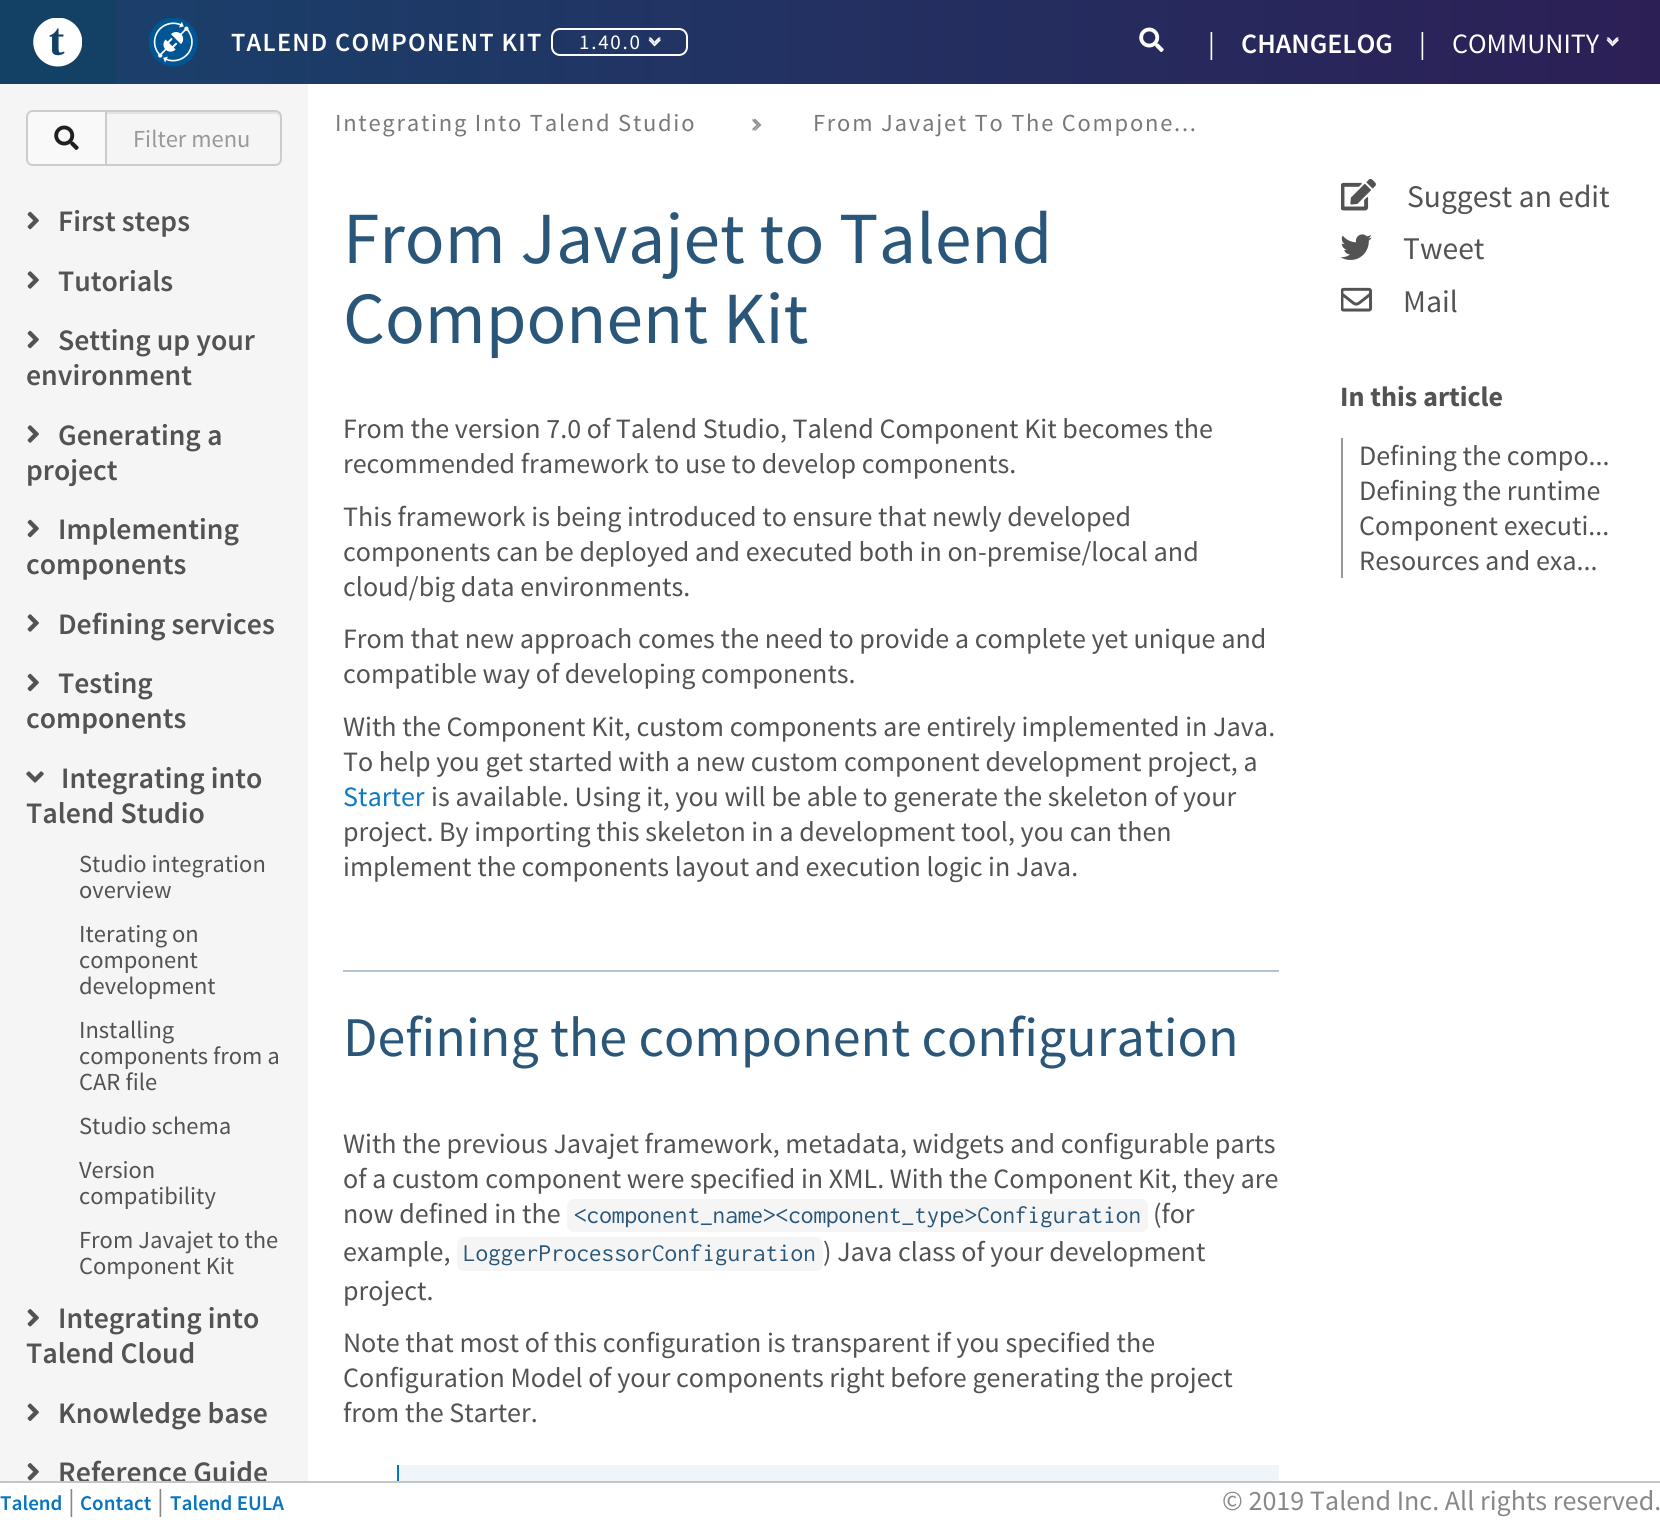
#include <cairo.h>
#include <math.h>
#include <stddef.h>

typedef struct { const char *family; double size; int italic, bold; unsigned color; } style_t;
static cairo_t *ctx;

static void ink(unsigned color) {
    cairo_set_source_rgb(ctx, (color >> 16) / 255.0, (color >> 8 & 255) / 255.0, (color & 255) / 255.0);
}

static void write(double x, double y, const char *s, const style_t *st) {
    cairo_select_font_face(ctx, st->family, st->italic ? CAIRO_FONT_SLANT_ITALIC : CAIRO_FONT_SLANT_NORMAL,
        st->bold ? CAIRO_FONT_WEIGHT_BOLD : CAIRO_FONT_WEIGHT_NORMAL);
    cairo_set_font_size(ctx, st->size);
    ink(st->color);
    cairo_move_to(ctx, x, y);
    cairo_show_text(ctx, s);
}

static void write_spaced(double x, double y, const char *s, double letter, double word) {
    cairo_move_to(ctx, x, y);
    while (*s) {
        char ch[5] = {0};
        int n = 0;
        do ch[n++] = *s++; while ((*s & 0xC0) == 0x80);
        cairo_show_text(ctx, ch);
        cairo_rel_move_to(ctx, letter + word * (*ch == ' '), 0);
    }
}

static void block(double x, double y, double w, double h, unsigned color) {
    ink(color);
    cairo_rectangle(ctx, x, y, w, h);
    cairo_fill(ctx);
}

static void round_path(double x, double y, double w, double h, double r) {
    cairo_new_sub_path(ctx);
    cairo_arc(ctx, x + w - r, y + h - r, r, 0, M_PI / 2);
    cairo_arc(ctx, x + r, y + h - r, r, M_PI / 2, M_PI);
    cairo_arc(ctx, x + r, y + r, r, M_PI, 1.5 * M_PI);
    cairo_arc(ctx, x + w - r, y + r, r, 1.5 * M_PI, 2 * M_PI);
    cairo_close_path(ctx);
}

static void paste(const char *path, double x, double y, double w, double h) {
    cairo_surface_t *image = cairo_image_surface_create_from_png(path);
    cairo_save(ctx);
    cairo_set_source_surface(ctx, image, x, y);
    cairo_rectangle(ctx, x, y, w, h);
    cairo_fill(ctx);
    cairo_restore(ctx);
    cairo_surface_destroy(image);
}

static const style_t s1 = {"Source Sans Pro", 28, 0, 0, 0xffffff};
static const style_t s2 = {"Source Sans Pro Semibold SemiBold", 28, 0, 0, 0xffffff};
static const style_t s3 = {"Source Sans Pro", 24.5, 0, 0, 0x999999};
static const style_t s4 = {"Source Sans Pro Semibold SemiBold", 29.75, 0, 0, 0x535353};
static const style_t s5 = {"Source Sans Pro", 24.5, 0, 0, 0x535353};
static const style_t s6 = {"Source Sans Pro", 73.5, 0, 0, 0x295679};
static const style_t s7 = {"Source Sans Pro", 28, 0, 0, 0x535353};
static const style_t s8 = {"Source Sans Pro", 28, 0, 0, 0x0f7ac3};
static const style_t s9 = {"Source Sans Pro", 56, 0, 0, 0x295679};
static const style_t s10 = {"Inconsolata", 25.2, 0, 0, 0x295679};
static const style_t s11 = {"Source Sans Pro", 31.5, 0, 0, 0x535353};
static const style_t s12 = {"Source Sans Pro", 28, 0, 1, 0x535353};
static const style_t s13 = {"Source Sans Pro Semibold SemiBold", 21, 0, 0, 0x0675c1};
static const style_t s14 = {"Source Sans Pro", 28, 0, 0, 0x888888};

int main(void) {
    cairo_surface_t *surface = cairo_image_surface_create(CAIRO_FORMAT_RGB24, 1660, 1520);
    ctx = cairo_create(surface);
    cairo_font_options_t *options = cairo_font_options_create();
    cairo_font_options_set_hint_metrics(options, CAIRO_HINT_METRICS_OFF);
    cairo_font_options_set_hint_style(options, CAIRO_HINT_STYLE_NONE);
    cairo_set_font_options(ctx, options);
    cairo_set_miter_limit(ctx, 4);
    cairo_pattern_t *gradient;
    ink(0xffffff);
    cairo_paint(ctx);
    gradient = cairo_pattern_create_linear(0, 42, 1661, 42);
    cairo_pattern_add_color_stop_rgba(gradient, 0, 0.098, 0.259, 0.424, 1);
    cairo_pattern_add_color_stop_rgba(gradient, 1, 0.173, 0.122, 0.337, 1);
    cairo_set_source(ctx, gradient);
    cairo_pattern_destroy(gradient);
    cairo_rectangle(ctx, 116, 0, 1544, 84);
    cairo_fill(ctx);
    block(0, 0, 116, 84, 0x134165);
    paste("pic1.png", 33, 18, 49, 49);
    paste("pic2.png", 149, 18, 49, 49);
    cairo_select_font_face(ctx, "Source Sans Pro Semibold SemiBold", CAIRO_FONT_SLANT_NORMAL, CAIRO_FONT_WEIGHT_NORMAL);
    cairo_set_font_size(ctx, 26.25);
    ink(0xffffff);
    write_spaced(231, 51, "TALEND COMPONENT KIT", 1.25, 0);
    round_path(552, 29, 135, 26, 8);
    cairo_stroke(ctx);
    cairo_select_font_face(ctx, "Source Sans Pro", CAIRO_FONT_SLANT_NORMAL, CAIRO_FONT_WEIGHT_NORMAL);
    cairo_set_font_size(ctx, 21);
    write_spaced(579, 49, "1.40.0", 1.75, 0);
    cairo_new_path(ctx);
    cairo_move_to(ctx, 661, 40);
    cairo_line_to(ctx, 659.5, 39);
    cairo_line_to(ctx, 654.5, 44);
    cairo_line_to(ctx, 649.5, 39);
    cairo_line_to(ctx, 648.5, 40);
    cairo_line_to(ctx, 654.5, 46.5);
    cairo_close_path(ctx);
    cairo_fill(ctx);
    cairo_new_path(ctx);
    cairo_move_to(ctx, 661, 37.5);
    cairo_line_to(ctx, 654.5, 44);
    cairo_line_to(ctx, 654.5, 41.5);
    cairo_line_to(ctx, 658.5, 37.5);
    cairo_close_path(ctx);
    cairo_fill(ctx);
    cairo_new_path(ctx);
    cairo_move_to(ctx, 654.5, 44);
    cairo_line_to(ctx, 648.5, 37.5);
    cairo_line_to(ctx, 651, 37.5);
    cairo_line_to(ctx, 654.5, 41.5);
    cairo_close_path(ctx);
    cairo_fill(ctx);
    paste("pic3.png", 1139, 27, 25, 25);
    write(1208, 53, "|", &s1);
    write(1241, 53, "CHANGELOG", &s2);
    write(1419, 53, "|", &s1);
    write(1452, 53, "COMMUNITY", &s1);
    cairo_new_path(ctx);
    cairo_move_to(ctx, 1619, 40);
    cairo_line_to(ctx, 1617.5, 39);
    cairo_line_to(ctx, 1612.5, 44);
    cairo_line_to(ctx, 1607.5, 39);
    cairo_line_to(ctx, 1606.5, 40);
    cairo_line_to(ctx, 1612.5, 46.5);
    cairo_close_path(ctx);
    cairo_fill(ctx);
    cairo_new_path(ctx);
    cairo_move_to(ctx, 1619, 37.5);
    cairo_line_to(ctx, 1612.5, 44);
    cairo_line_to(ctx, 1612.5, 41.5);
    cairo_line_to(ctx, 1616.5, 37.5);
    cairo_close_path(ctx);
    cairo_fill(ctx);
    cairo_new_path(ctx);
    cairo_move_to(ctx, 1612.5, 44);
    cairo_line_to(ctx, 1606.5, 37.5);
    cairo_line_to(ctx, 1609, 37.5);
    cairo_line_to(ctx, 1612.5, 41.5);
    cairo_close_path(ctx);
    cairo_fill(ctx);
    block(0, 84, 308, 1397, 0xf5f5f5);
    ink(0xf9f9f9);
    cairo_new_path(ctx);
    cairo_move_to(ctx, 33, 110);
    cairo_line_to(ctx, 105, 110);
    cairo_line_to(ctx, 105, 166);
    cairo_line_to(ctx, 33, 166);
    cairo_curve_to(ctx, 29, 166, 26, 163, 26, 159);
    cairo_line_to(ctx, 26, 117);
    cairo_curve_to(ctx, 26, 113, 29, 110, 33, 110);
    cairo_close_path(ctx);
    cairo_fill(ctx);
    ink(0xcccccc);
    cairo_set_fill_rule(ctx, CAIRO_FILL_RULE_EVEN_ODD);
    cairo_new_path(ctx);
    cairo_move_to(ctx, 33, 110);
    cairo_line_to(ctx, 105, 110);
    cairo_line_to(ctx, 105, 166);
    cairo_line_to(ctx, 33, 166);
    cairo_curve_to(ctx, 29, 166, 26, 163, 26, 159);
    cairo_line_to(ctx, 26, 117);
    cairo_curve_to(ctx, 26, 113, 29, 110, 33, 110);
    cairo_close_path(ctx);
    cairo_move_to(ctx, 33, 112);
    cairo_line_to(ctx, 105, 112);
    cairo_line_to(ctx, 105, 164);
    cairo_line_to(ctx, 33, 164);
    cairo_curve_to(ctx, 30, 164, 28, 162, 28, 159);
    cairo_line_to(ctx, 28, 117);
    cairo_curve_to(ctx, 28, 114, 30, 112, 33, 112);
    cairo_close_path(ctx);
    cairo_fill(ctx);
    paste("pic4.png", 54, 125, 25, 25);
    ink(0xe3e3e3);
    cairo_set_fill_rule(ctx, CAIRO_FILL_RULE_WINDING);
    cairo_new_path(ctx);
    cairo_move_to(ctx, 107, 114);
    cairo_line_to(ctx, 275, 114);
    cairo_curve_to(ctx, 278, 114, 280, 116, 280, 119);
    cairo_line_to(ctx, 280, 117);
    cairo_curve_to(ctx, 280, 114, 278, 112, 275, 112);
    cairo_line_to(ctx, 107, 112);
    cairo_close_path(ctx);
    cairo_fill(ctx);
    cairo_new_path(ctx);
    cairo_move_to(ctx, 106, 111);
    cairo_line_to(ctx, 275, 111);
    cairo_curve_to(ctx, 278.5, 111, 281, 113.5, 281, 117);
    cairo_line_to(ctx, 281, 159);
    cairo_curve_to(ctx, 281, 162.5, 278.5, 165, 275, 165);
    cairo_line_to(ctx, 106, 165);
    cairo_close_path(ctx);
    ink(0xcccccc);
    cairo_stroke(ctx);
    write(133, 147, "Filter menu", &s3);
    paste("pic5.png", 27, 211, 12, 19);
    write(58, 231, "First steps", &s4);
    paste("pic6.png", 27, 271, 12, 18);
    write(58, 291, "Tutorials", &s4);
    paste("pic5.png", 27, 330, 12, 19);
    write(58, 350, "Setting up your", &s4);
    write(26, 385, "environment", &s4);
    paste("pic6.png", 27, 425, 12, 18);
    write(58, 445, "Generating a", &s4);
    write(26, 480, "project", &s4);
    paste("pic5.png", 27, 519, 12, 19);
    write(58, 539, "Implementing", &s4);
    write(26, 574, "components", &s4);
    paste("pic6.png", 27, 614, 12, 18);
    write(58, 634, "Defining services", &s4);
    paste("pic5.png", 27, 673, 12, 19);
    write(58, 693, "Testing", &s4);
    write(26, 728, "components", &s4);
    paste("pic7.png", 26, 771, 18, 12);
    write(61, 788, "Integrating into", &s4);
    write(26, 823, "Talend Studio", &s4);
    write(79, 872, "Studio integration", &s5);
    write(79, 898, "overview", &s5);
    write(79, 942, "Iterating on", &s5);
    write(79, 968, "component", &s5);
    write(79, 994, "development", &s5);
    write(79, 1038, "Installing", &s5);
    write(79, 1064, "components from a", &s5);
    write(79, 1090, "CAR file", &s5);
    write(79, 1134, "Studio schema", &s5);
    write(79, 1178, "Version", &s5);
    write(79, 1204, "compatibility", &s5);
    write(79, 1248, "From Javajet to the", &s5);
    write(79, 1274, "Component Kit", &s5);
    paste("pic8.png", 27, 1309, 12, 18);
    write(58, 1328, "Integrating into", &s4);
    write(26, 1363, "Talend Cloud", &s4);
    paste("pic9.png", 27, 1403, 12, 18);
    write(58, 1423, "Knowledge base", &s4);
    paste("pic8.png", 27, 1463, 12, 18);
    write(58, 1482, "Reference Guide", &s4);
    cairo_select_font_face(ctx, "Source Sans Pro", CAIRO_FONT_SLANT_NORMAL, CAIRO_FONT_WEIGHT_NORMAL);
    cairo_set_font_size(ctx, 24.5);
    ink(0x797979);
    write_spaced(335, 131, "Integrating Into Talend Studio", 1.75, 0);
    ink(0x909090);
    cairo_new_path(ctx);
    cairo_move_to(ctx, 755, 118.5);
    cairo_line_to(ctx, 753.5, 120);
    cairo_line_to(ctx, 759, 125);
    cairo_line_to(ctx, 754, 130);
    cairo_line_to(ctx, 755, 131);
    cairo_line_to(ctx, 761.5, 125);
    cairo_close_path(ctx);
    cairo_fill(ctx);
    cairo_new_path(ctx);
    cairo_move_to(ctx, 752.5, 118.5);
    cairo_line_to(ctx, 759, 125);
    cairo_line_to(ctx, 756.5, 125);
    cairo_line_to(ctx, 752.5, 121);
    cairo_close_path(ctx);
    cairo_move_to(ctx, 759, 125);
    cairo_line_to(ctx, 752.5, 131);
    cairo_line_to(ctx, 752.5, 128.5);
    cairo_line_to(ctx, 756.5, 125);
    cairo_close_path(ctx);
    cairo_fill(ctx);
    ink(0x797979);
    write_spaced(813, 131, "From Javajet To The Compone...", 1.75, 0);
    write(343, 263, "From Javajet to Talend", &s6);
    write(343, 343, "Component Kit", &s6);
    write(343, 438, "From the version 7.0 of Talend Studio, Talend Component Kit becomes the", &s7);
    write(343, 473, "recommended framework to use to develop components.", &s7);
    write(343, 526, "This framework is being introduced to ensure that newly developed", &s7);
    write(343, 561, "components can be deployed and executed both in on-premise/local and", &s7);
    write(343, 596, "cloud/big data environments.", &s7);
    write(343, 648, "From that new approach comes the need to provide a complete yet unique and", &s7);
    write(343, 683, "compatible way of developing components.", &s7);
    write(343, 736, "With the Component Kit, custom components are entirely implemented in Java.", &s7);
    write(343, 771, "To help you get started with a new custom component development project, a", &s7);
    write(343, 806, "Starter", &s8);
    write(431, 806, "is available. Using it, you will be able to generate the skeleton of your", &s7);
    write(343, 841, "project. By importing this skeleton in a development tool, you can then", &s7);
    write(343, 876, "implement the components layout and execution logic in Java.", &s7);
    block(343, 970, 936, 2, 0xb4c4d0);
    write(343, 1056, "Defining the component configuration", &s9);
    write(343, 1153, "With the previous Javajet framework, metadata, widgets and configurable parts", &s7);
    write(343, 1188, "of a custom component were specified in XML. With the Component Kit, they are", &s7);
    write(343, 1223, "now defined in the", &s7);
    ink(0xf5f5f5);
    round_path(567, 1199, 581, 33, 7);
    cairo_fill(ctx);
    write(574, 1223, "<component_name><component_type>Configuration", &s10);
    write(1153, 1223, "(for", &s7);
    write(343, 1261, "example,", &s7);
    ink(0xf5f5f5);
    round_path(457, 1237, 366, 34, 7);
    cairo_fill(ctx);
    write(463, 1261, "LoggerProcessorConfiguration", &s10);
    write(823, 1261, ") Java class of your development", &s7);
    write(343, 1300, "project.", &s7);
    write(343, 1352, "Note that most of this configuration is transparent if you specified the", &s7);
    write(343, 1387, "Configuration Model of your components right before generating the project", &s7);
    write(343, 1422, "from the Starter.", &s7);
    block(399, 1465, 880, 16, 0xeff6fb);
    block(397, 1465, 2, 16, 0x0675c1);
    paste("pic10.png", 1341, 179, 35, 32);
    write(1407, 207, "Suggest an edit", &s11);
    paste("pic11.png", 1341, 234, 31, 26);
    write(1403, 259, "Tweet", &s11);
    paste("pic12.png", 1341, 287, 31, 25);
    write(1403, 312, "Mail", &s11);
    write(1340, 406, "In this article", &s12);
    block(1341, 438, 2, 140, 0x979797);
    write(1359, 465, "Defining the compo...", &s7);
    write(1359, 500, "Defining the runtime", &s7);
    write(1359, 535, "Component executi...", &s7);
    write(1359, 570, "Resources and exa...", &s7);
    block(0, 1481, 1660, 2, 0xc6c6c6);
    write(0, 1510, "Talend", &s13);
    write(68, 1510, "|", &s14);
    write(80, 1510, "Contact", &s13);
    write(157, 1510, "|", &s14);
    write(170, 1510, "Talend EULA", &s13);
    write(1222, 1510, "© 2019 Talend Inc. All rights reserved.", &s14);
    cairo_surface_write_to_png(surface, "screenshot.png");
    cairo_font_options_destroy(options);
    cairo_destroy(ctx);
    cairo_surface_destroy(surface);
    return 0;
}
